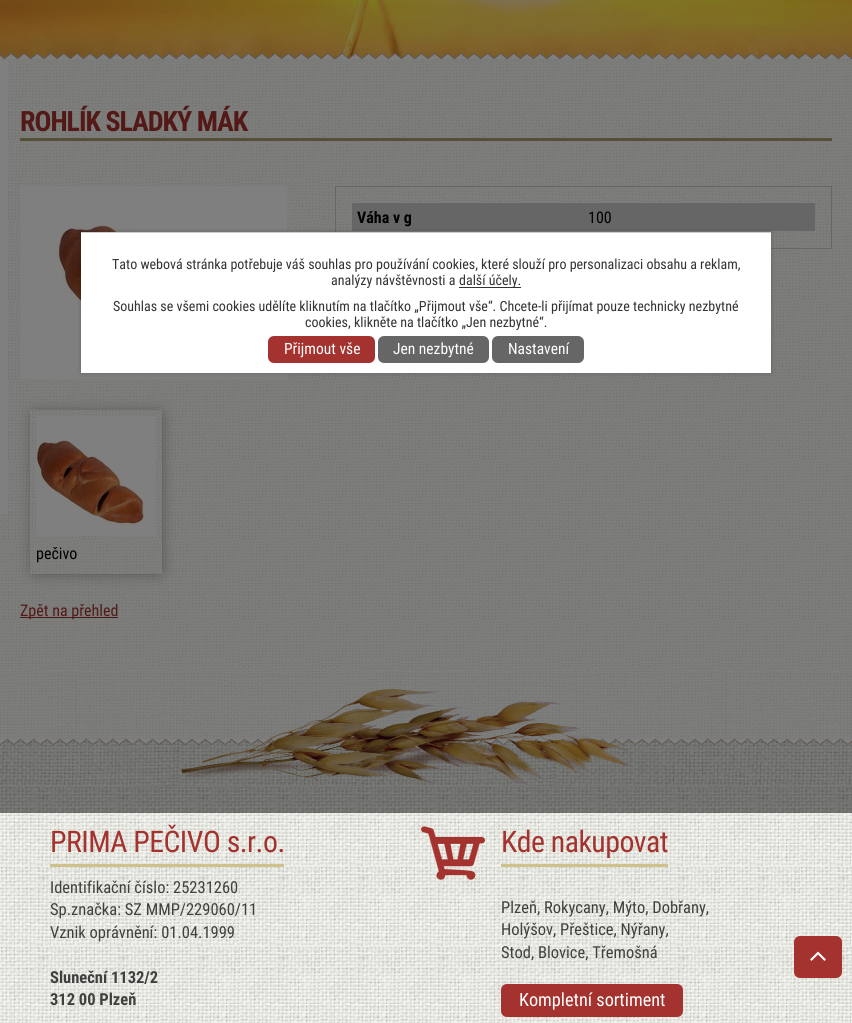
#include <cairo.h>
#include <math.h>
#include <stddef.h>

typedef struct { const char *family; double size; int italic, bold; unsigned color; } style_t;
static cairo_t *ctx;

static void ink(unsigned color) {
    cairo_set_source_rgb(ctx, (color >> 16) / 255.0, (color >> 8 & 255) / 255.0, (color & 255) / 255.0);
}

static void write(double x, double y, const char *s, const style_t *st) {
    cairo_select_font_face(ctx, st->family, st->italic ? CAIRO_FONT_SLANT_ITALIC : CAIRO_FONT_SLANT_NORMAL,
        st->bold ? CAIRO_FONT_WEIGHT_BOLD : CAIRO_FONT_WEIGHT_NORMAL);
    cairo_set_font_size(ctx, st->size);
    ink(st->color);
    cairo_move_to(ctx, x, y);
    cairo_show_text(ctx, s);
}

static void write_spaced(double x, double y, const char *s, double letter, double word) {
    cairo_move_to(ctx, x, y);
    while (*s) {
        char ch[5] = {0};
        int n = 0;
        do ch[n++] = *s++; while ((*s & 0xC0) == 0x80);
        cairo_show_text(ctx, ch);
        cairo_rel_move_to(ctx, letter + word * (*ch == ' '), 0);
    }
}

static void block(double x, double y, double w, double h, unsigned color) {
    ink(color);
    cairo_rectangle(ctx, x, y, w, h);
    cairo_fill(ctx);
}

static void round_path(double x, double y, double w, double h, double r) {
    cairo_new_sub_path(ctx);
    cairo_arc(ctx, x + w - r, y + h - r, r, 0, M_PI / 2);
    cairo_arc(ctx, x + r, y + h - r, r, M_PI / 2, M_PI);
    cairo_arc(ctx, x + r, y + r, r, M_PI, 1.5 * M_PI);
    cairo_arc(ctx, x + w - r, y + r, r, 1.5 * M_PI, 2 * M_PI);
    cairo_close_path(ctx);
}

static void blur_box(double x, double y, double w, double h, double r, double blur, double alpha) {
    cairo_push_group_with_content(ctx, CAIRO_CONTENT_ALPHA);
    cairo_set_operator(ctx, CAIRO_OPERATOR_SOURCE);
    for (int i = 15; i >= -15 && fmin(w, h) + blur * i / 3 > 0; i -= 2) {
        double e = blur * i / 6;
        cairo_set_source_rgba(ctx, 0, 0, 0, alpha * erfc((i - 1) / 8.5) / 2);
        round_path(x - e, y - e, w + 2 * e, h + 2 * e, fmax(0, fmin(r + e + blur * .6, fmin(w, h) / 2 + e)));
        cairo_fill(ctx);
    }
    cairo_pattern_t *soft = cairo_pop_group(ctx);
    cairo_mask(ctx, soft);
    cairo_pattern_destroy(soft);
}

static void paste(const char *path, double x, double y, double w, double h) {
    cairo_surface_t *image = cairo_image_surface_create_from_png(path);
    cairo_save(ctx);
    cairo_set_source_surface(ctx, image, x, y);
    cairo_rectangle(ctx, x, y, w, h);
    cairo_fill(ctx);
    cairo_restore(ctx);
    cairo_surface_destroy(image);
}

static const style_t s1 = {"Roboto Condensed", 16, 0, 1, 0x000000};
static const style_t s2 = {"Roboto Condensed", 16, 0, 0, 0x000000};
static const style_t s3 = {"Roboto Condensed", 16, 0, 0, 0xa4332f};
static const style_t s4 = {"Roboto Condensed", 14, 0, 0, 0x333333};
static const style_t s5 = {"Roboto Condensed", 15.5, 0, 0, 0xffffff};
static const style_t s6 = {"Roboto Condensed", 16.5, 0, 0, 0x40403f};
static const style_t s7 = {"Roboto Condensed", 16.5, 0, 1, 0x40403f};
static const style_t s8 = {"Roboto Condensed", 18.25, 0, 0, 0xffffff};

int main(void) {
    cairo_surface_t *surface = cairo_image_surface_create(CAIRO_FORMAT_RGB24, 852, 1023);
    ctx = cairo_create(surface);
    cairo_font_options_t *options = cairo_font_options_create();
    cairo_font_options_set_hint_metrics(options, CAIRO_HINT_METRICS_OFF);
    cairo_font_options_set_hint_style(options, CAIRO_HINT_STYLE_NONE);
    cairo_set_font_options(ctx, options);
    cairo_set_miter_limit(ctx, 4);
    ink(0xffffff);
    cairo_paint(ctx);
    paste("pic1.png", 0, 0, 852, 59);
    paste("pic2.png", 0, 60, 852, 611);
    block(0, 59, 8, 455, 0xffffff);
    paste("pic3.png", 0, 53, 852, 7);
    block(20, 138, 812, 3, 0xab9f6f);
    cairo_select_font_face(ctx, "Roboto Condensed", CAIRO_FONT_SLANT_NORMAL, CAIRO_FONT_WEIGHT_BOLD);
    cairo_set_font_size(ctx, 28);
    ink(0xa4332f);
    write_spaced(20, 131, "ROHLÍK SLADKÝ MÁK", -1, 0);
    paste("pic4.png", 20, 186, 267, 193);
    cairo_rectangle(ctx, 335.5, 186.5, 496, 62);
    ink(0xcccccc);
    cairo_set_line_width(ctx, 1);
    cairo_stroke(ctx);
    block(352, 203, 463, 28, 0xcccccc);
    write(357, 223, "Váha v g", &s1);
    write(588, 223, "100", &s2);
    cairo_save(ctx);
    cairo_set_fill_rule(ctx, CAIRO_FILL_RULE_EVEN_ODD);
    cairo_new_path(ctx);
    cairo_move_to(ctx, 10, 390);
    cairo_line_to(ctx, 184, 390);
    cairo_line_to(ctx, 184, 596);
    cairo_line_to(ctx, 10, 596);
    cairo_close_path(ctx);
    cairo_move_to(ctx, 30, 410);
    cairo_line_to(ctx, 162, 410);
    cairo_line_to(ctx, 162, 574);
    cairo_line_to(ctx, 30, 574);
    cairo_close_path(ctx);
    cairo_clip(ctx);
    ink(0x888888);
    blur_box(35, 415, 124, 156, 0, 8, 1);
    cairo_restore(ctx);
    block(36, 416, 120, 120, 0xffffff);
    paste("pic5.png", 36, 439, 120, 87);
    write(36, 559, "pečivo", &s2);
    block(20, 617, 98, 1, 0xa4332f);
    write(20, 616, "Zpět na přehled", &s3);
    paste("pic8.png", 0, 786, 852, 237);
    round_path(794, 936, 48, 42, 6);
    cairo_fill(ctx);
    paste("pic6.png", 810, 951, 16, 10);
    paste("pic7.png", 0, 671, 852, 115);
    cairo_set_source_rgba(ctx, 0, 0, 0, 0.5);
    cairo_rectangle(ctx, 0, 0, 852, 813);
    cairo_fill(ctx);
    ink(0x000000);
    blur_box(81, 232, 690, 141, 0, 2.5, 0.2);
    block(81, 233, 690, 140, 0xffffff);
    block(81, 232, 690, 1, 0xcccccc);
    write(112, 269, "Tato webová stránka potřebuje váš souhlas pro používání cookies, které slouží pro personalizaci obsahu a reklam,", &s4);
    write(331, 285, "analýzy návštěvnosti a", &s4);
    block(459, 287, 62, 1, 0x333333);
    write(459, 285, "další účely.", &s4);
    write(113, 311, "Souhlas se všemi cookies udělíte kliknutím na tlačítko „Přijmout vše“. Chcete-li přijímat pouze technicky nezbytné", &s4);
    write(305, 327, "cookies, klikněte na tlačítko „Jen nezbytné“.", &s4);
    ink(0xa4332f);
    round_path(268, 336, 107, 27, 6);
    cairo_fill(ctx);
    write(284, 354, "Přijmout vše", &s5);
    ink(0x666666);
    round_path(378, 336, 111, 27, 6);
    cairo_fill(ctx);
    write(393, 354, "Jen nezbytné", &s5);
    ink(0x666666);
    round_path(492, 336, 92, 27, 6);
    cairo_fill(ctx);
    write(508, 354, "Nastavení", &s5);
    block(50, 864, 234, 3, 0xcec18c);
    cairo_set_font_size(ctx, 29.75);
    ink(0xa4332f);
    write_spaced(50, 852, "PRIMA PEČIVO s.r.o.", -0.5, 0);
    write(50, 893, "Identifikační číslo: 25231260", &s6);
    write(50, 915, "Sp.značka: SZ MMP/229060/11", &s6);
    write(50, 938, "Vznik oprávnění: 01.04.1999", &s6);
    write(50, 983, "Sluneční 1132/2", &s7);
    write(50, 1005, "312 00 Plzeň", &s7);
    paste("pic9.png", 421, 826, 64, 54);
    block(501, 864, 167, 3, 0xcec18c);
    cairo_select_font_face(ctx, "Roboto Condensed", CAIRO_FONT_SLANT_NORMAL, CAIRO_FONT_WEIGHT_NORMAL);
    cairo_set_font_size(ctx, 29.75);
    ink(0xa4332f);
    write_spaced(501, 852, "Kde nakupovat", -0.5, 0);
    write(501, 913, "Plzeň, Rokycany, Mýto, Dobřany,", &s6);
    write(501, 935, "Holýšov, Přeštice, Nýřany,", &s6);
    write(501, 958, "Stod, Blovice, Třemošná", &s6);
    ink(0xa4332f);
    round_path(501, 984, 182, 33, 6);
    cairo_fill(ctx);
    write(519, 1006, "Kompletní sortiment", &s8);
    cairo_surface_write_to_png(surface, "screenshot.png");
    cairo_font_options_destroy(options);
    cairo_destroy(ctx);
    cairo_surface_destroy(surface);
    return 0;
}
